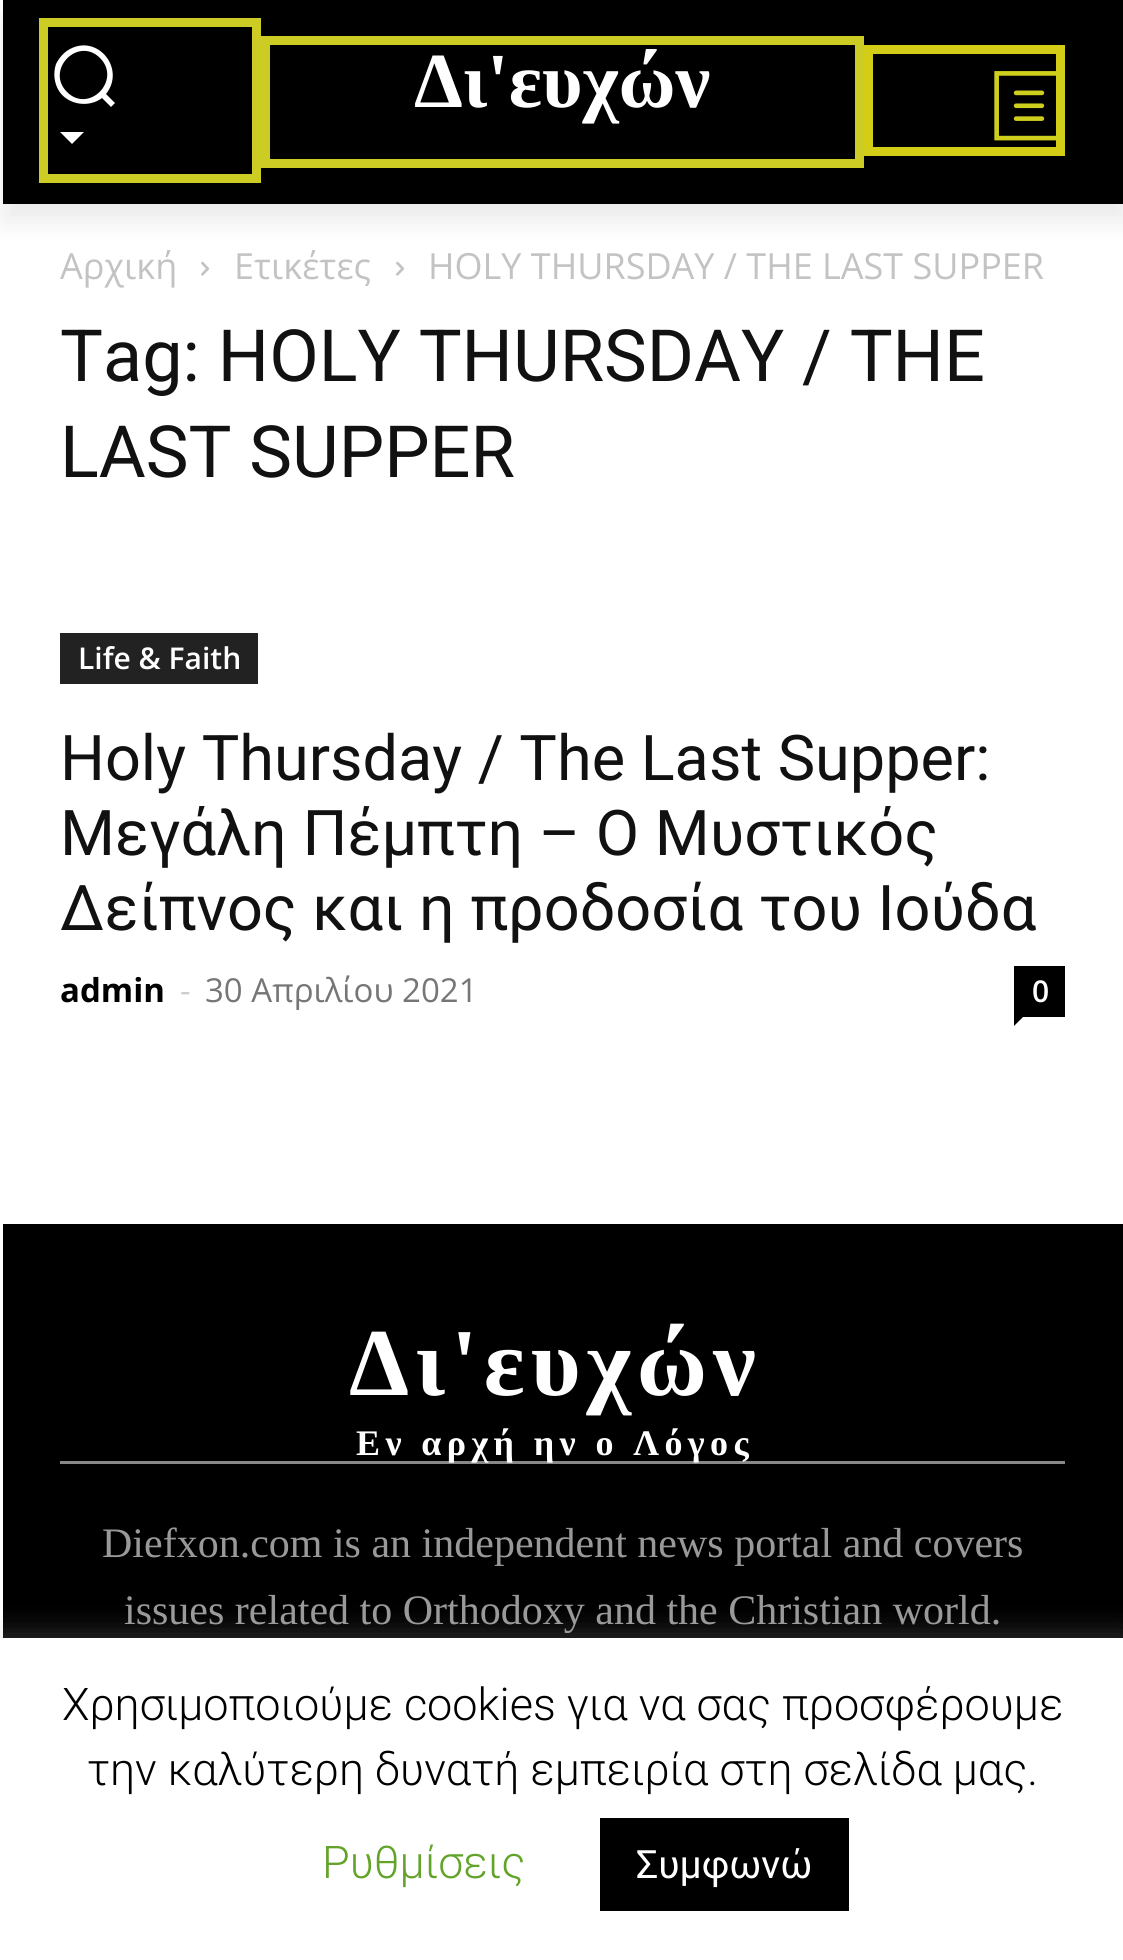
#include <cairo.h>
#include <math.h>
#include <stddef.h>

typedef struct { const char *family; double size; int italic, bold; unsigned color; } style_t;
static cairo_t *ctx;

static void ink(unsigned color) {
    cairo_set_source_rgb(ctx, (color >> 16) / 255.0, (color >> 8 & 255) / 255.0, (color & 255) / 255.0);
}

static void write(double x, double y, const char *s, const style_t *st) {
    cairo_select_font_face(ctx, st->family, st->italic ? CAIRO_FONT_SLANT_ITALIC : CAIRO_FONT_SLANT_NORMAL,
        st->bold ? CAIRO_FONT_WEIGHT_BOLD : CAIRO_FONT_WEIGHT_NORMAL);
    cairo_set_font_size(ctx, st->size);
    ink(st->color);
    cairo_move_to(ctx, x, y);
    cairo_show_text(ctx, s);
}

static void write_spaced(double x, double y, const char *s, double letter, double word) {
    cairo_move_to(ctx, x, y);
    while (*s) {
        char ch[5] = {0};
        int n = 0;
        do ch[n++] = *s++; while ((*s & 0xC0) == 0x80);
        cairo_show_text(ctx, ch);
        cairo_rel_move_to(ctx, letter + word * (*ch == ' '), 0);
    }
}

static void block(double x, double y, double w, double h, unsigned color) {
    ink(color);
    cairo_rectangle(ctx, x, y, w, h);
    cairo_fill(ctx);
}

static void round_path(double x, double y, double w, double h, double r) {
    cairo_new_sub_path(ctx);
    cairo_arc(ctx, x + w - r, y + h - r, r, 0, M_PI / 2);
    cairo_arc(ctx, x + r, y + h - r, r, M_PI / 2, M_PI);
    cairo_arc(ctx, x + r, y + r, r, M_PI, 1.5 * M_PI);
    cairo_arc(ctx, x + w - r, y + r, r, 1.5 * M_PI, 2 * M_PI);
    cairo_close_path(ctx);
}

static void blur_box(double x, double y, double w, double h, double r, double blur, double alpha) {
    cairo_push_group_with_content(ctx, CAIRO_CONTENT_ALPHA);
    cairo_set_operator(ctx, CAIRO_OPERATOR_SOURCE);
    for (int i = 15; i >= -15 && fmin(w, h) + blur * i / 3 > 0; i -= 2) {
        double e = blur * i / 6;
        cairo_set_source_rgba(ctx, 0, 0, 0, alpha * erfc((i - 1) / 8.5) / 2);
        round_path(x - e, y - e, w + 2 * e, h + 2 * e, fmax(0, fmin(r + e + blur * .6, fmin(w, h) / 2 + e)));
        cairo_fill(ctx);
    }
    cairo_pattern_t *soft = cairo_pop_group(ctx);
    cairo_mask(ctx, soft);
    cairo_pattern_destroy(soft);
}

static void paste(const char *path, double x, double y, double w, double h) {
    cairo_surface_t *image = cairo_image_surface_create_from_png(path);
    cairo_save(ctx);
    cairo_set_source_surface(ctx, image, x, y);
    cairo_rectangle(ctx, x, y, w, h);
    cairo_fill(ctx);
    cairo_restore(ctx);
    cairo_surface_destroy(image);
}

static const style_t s1 = {"Liberation Serif", 78, 0, 1, 0xffffff};
static const style_t s2 = {"Open Sans", 36, 0, 0, 0xc3c3c3};
static const style_t s3 = {"Roboto", 72, 0, 0, 0x111111};
static const style_t s4 = {"Open Sans SemiBold", 30, 0, 0, 0xffffff};
static const style_t s5 = {"Roboto", 63, 0, 0, 0x111111};
static const style_t s6 = {"Open Sans", 33, 0, 1, 0x000000};
static const style_t s7 = {"Open Sans", 33, 0, 0, 0xcccccc};
static const style_t s8 = {"Open Sans", 33, 0, 0, 0x767676};
static const style_t s9 = {"Liberation Serif", 42, 0, 0, 0x999999};
static const style_t s10 = {"Roboto Light", 45, 0, 0, 0x000000};
static const style_t s11 = {"Roboto Light", 45, 0, 0, 0x62a329};
static const style_t s12 = {"Roboto", 39, 0, 0, 0xffffff};

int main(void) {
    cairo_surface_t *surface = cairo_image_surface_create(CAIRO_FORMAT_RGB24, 1123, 1960);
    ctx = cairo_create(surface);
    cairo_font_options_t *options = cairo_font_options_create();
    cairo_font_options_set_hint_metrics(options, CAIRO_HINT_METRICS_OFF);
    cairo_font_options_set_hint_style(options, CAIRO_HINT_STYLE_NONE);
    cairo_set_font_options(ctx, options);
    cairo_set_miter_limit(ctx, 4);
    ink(0xffffff);
    cairo_paint(ctx);
    block(3, 0, 1120, 204, 0x000000);
    cairo_rectangle(ctx, 43.5, 22.5, 213, 156);
    ink(0xcccc24);
    cairo_set_line_width(ctx, 9);
    cairo_stroke(ctx);
    ink(0xffffff);
    cairo_new_path(ctx);
    cairo_move_to(ctx, 115, 103);
    cairo_line_to(ctx, 106, 94);
    cairo_curve_to(ctx, 126, 69, 98, 34, 70, 49);
    cairo_curve_to(ctx, 64, 52, 59, 58, 56, 64);
    cairo_curve_to(ctx, 53, 73, 54, 83, 59, 91);
    cairo_curve_to(ctx, 68, 105, 89, 108, 102, 98);
    cairo_line_to(ctx, 111, 107);
    cairo_close_path(ctx);
    cairo_move_to(ctx, 67, 92);
    cairo_curve_to(ctx, 45, 70, 78, 36, 100, 58);
    cairo_curve_to(ctx, 122, 80, 89, 114, 67, 92);
    cairo_close_path(ctx);
    cairo_fill(ctx);
    cairo_new_path(ctx);
    cairo_move_to(ctx, 60, 132);
    cairo_line_to(ctx, 84, 132);
    cairo_line_to(ctx, 72, 144);
    cairo_close_path(ctx);
    cairo_fill(ctx);
    cairo_rectangle(ctx, 265.5, 40.5, 594, 123);
    ink(0xcccc24);
    cairo_stroke(ctx);
    cairo_rectangle(ctx, 868.5, 49.5, 192, 102);
    ink(0xd3cd17);
    cairo_stroke(ctx);
    paste("pic1.png", 994, 71, 69, 70);
    cairo_save(ctx);
    cairo_set_fill_rule(ctx, CAIRO_FILL_RULE_EVEN_ODD);
    cairo_new_path(ctx);
    cairo_move_to(ctx, 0, 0);
    cairo_line_to(ctx, 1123, 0);
    cairo_line_to(ctx, 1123, 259);
    cairo_line_to(ctx, 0, 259);
    cairo_close_path(ctx);
    cairo_move_to(ctx, 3, 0);
    cairo_line_to(ctx, 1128, 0);
    cairo_line_to(ctx, 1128, 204);
    cairo_line_to(ctx, 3, 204);
    cairo_close_path(ctx);
    cairo_clip(ctx);
    ink(0x000000);
    blur_box(3, 18, 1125, 204, 0, 12, 0.08);
    cairo_restore(ctx);
    write(414, 107, "Δι'ευχών", &s1);
    write(60, 279, "Αρχική", &s2);
    paste("pic2.png", 201, 261, 9, 15);
    write(234, 279, "Ετικέτες", &s2);
    paste("pic2.png", 396, 261, 9, 15);
    write(428, 279, "HOLY THURSDAY / THE LAST SUPPER", &s2);
    write(60, 381, "Tag: HOLY THURSDAY / THE", &s3);
    write(60, 477, "LAST SUPPER", &s3);
    block(60, 633, 198, 51, 0x222222);
    write(78, 669, "Life & Faith", &s4);
    write(60, 780, "Holy Thursday / The Last Supper:", &s5);
    write(60, 855, "Μεγάλη Πέμπτη – Ο Μυστικός", &s5);
    write(60, 930, "Δείπνος και η προδοσία του Ιούδα", &s5);
    write(60, 1002, "admin", &s6);
    write(180, 1002, "-", &s7);
    write(205, 1002, "30 Απριλίου 2021", &s8);
    block(1014, 966, 51, 51, 0x000000);
    write(1032, 1002, "0", &s4);
    ink(0x000000);
    cairo_new_path(ctx);
    cairo_move_to(ctx, 1014, 1017);
    cairo_line_to(ctx, 1023, 1017);
    cairo_line_to(ctx, 1014, 1026);
    cairo_close_path(ctx);
    cairo_fill(ctx);
    block(3, 1224, 1120, 414, 0x000000);
    block(60, 1461, 1005, 3, 0x888888);
    cairo_select_font_face(ctx, "Liberation Serif", CAIRO_FONT_SLANT_NORMAL, CAIRO_FONT_WEIGHT_BOLD);
    cairo_set_font_size(ctx, 96);
    ink(0xffffff);
    write_spaced(349, 1395, "Δι'ευχών", 6, 0);
    cairo_set_font_size(ctx, 36);
    write_spaced(356, 1455, "Εν αρχή ην ο Λόγος", 5.4, 0);
    write(102, 1557, "Diefxon.com is an independent news portal and covers", &s9);
    write(124, 1624, "issues related to Orthodoxy and the Christian world.", &s9);
    ink(0xacabab);
    blur_box(0, 1635, 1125, 324, 0, 15, 0.3);
    block(0, 1638, 1123, 322, 0xffffff);
    write(62, 1720, "Χρησιμοποιούμε cookies για να σας προσφέρουμε", &s10);
    write(87, 1785, "την καλύτερη δυνατή εμπειρία στη σελίδα μας.", &s10);
    write(322, 1878, "Ρυθμίσεις", &s11);
    block(600, 1818, 249, 93, 0x000000);
    write(636, 1878, "Συμφωνώ", &s12);
    cairo_surface_write_to_png(surface, "screenshot.png");
    cairo_font_options_destroy(options);
    cairo_destroy(ctx);
    cairo_surface_destroy(surface);
    return 0;
}
